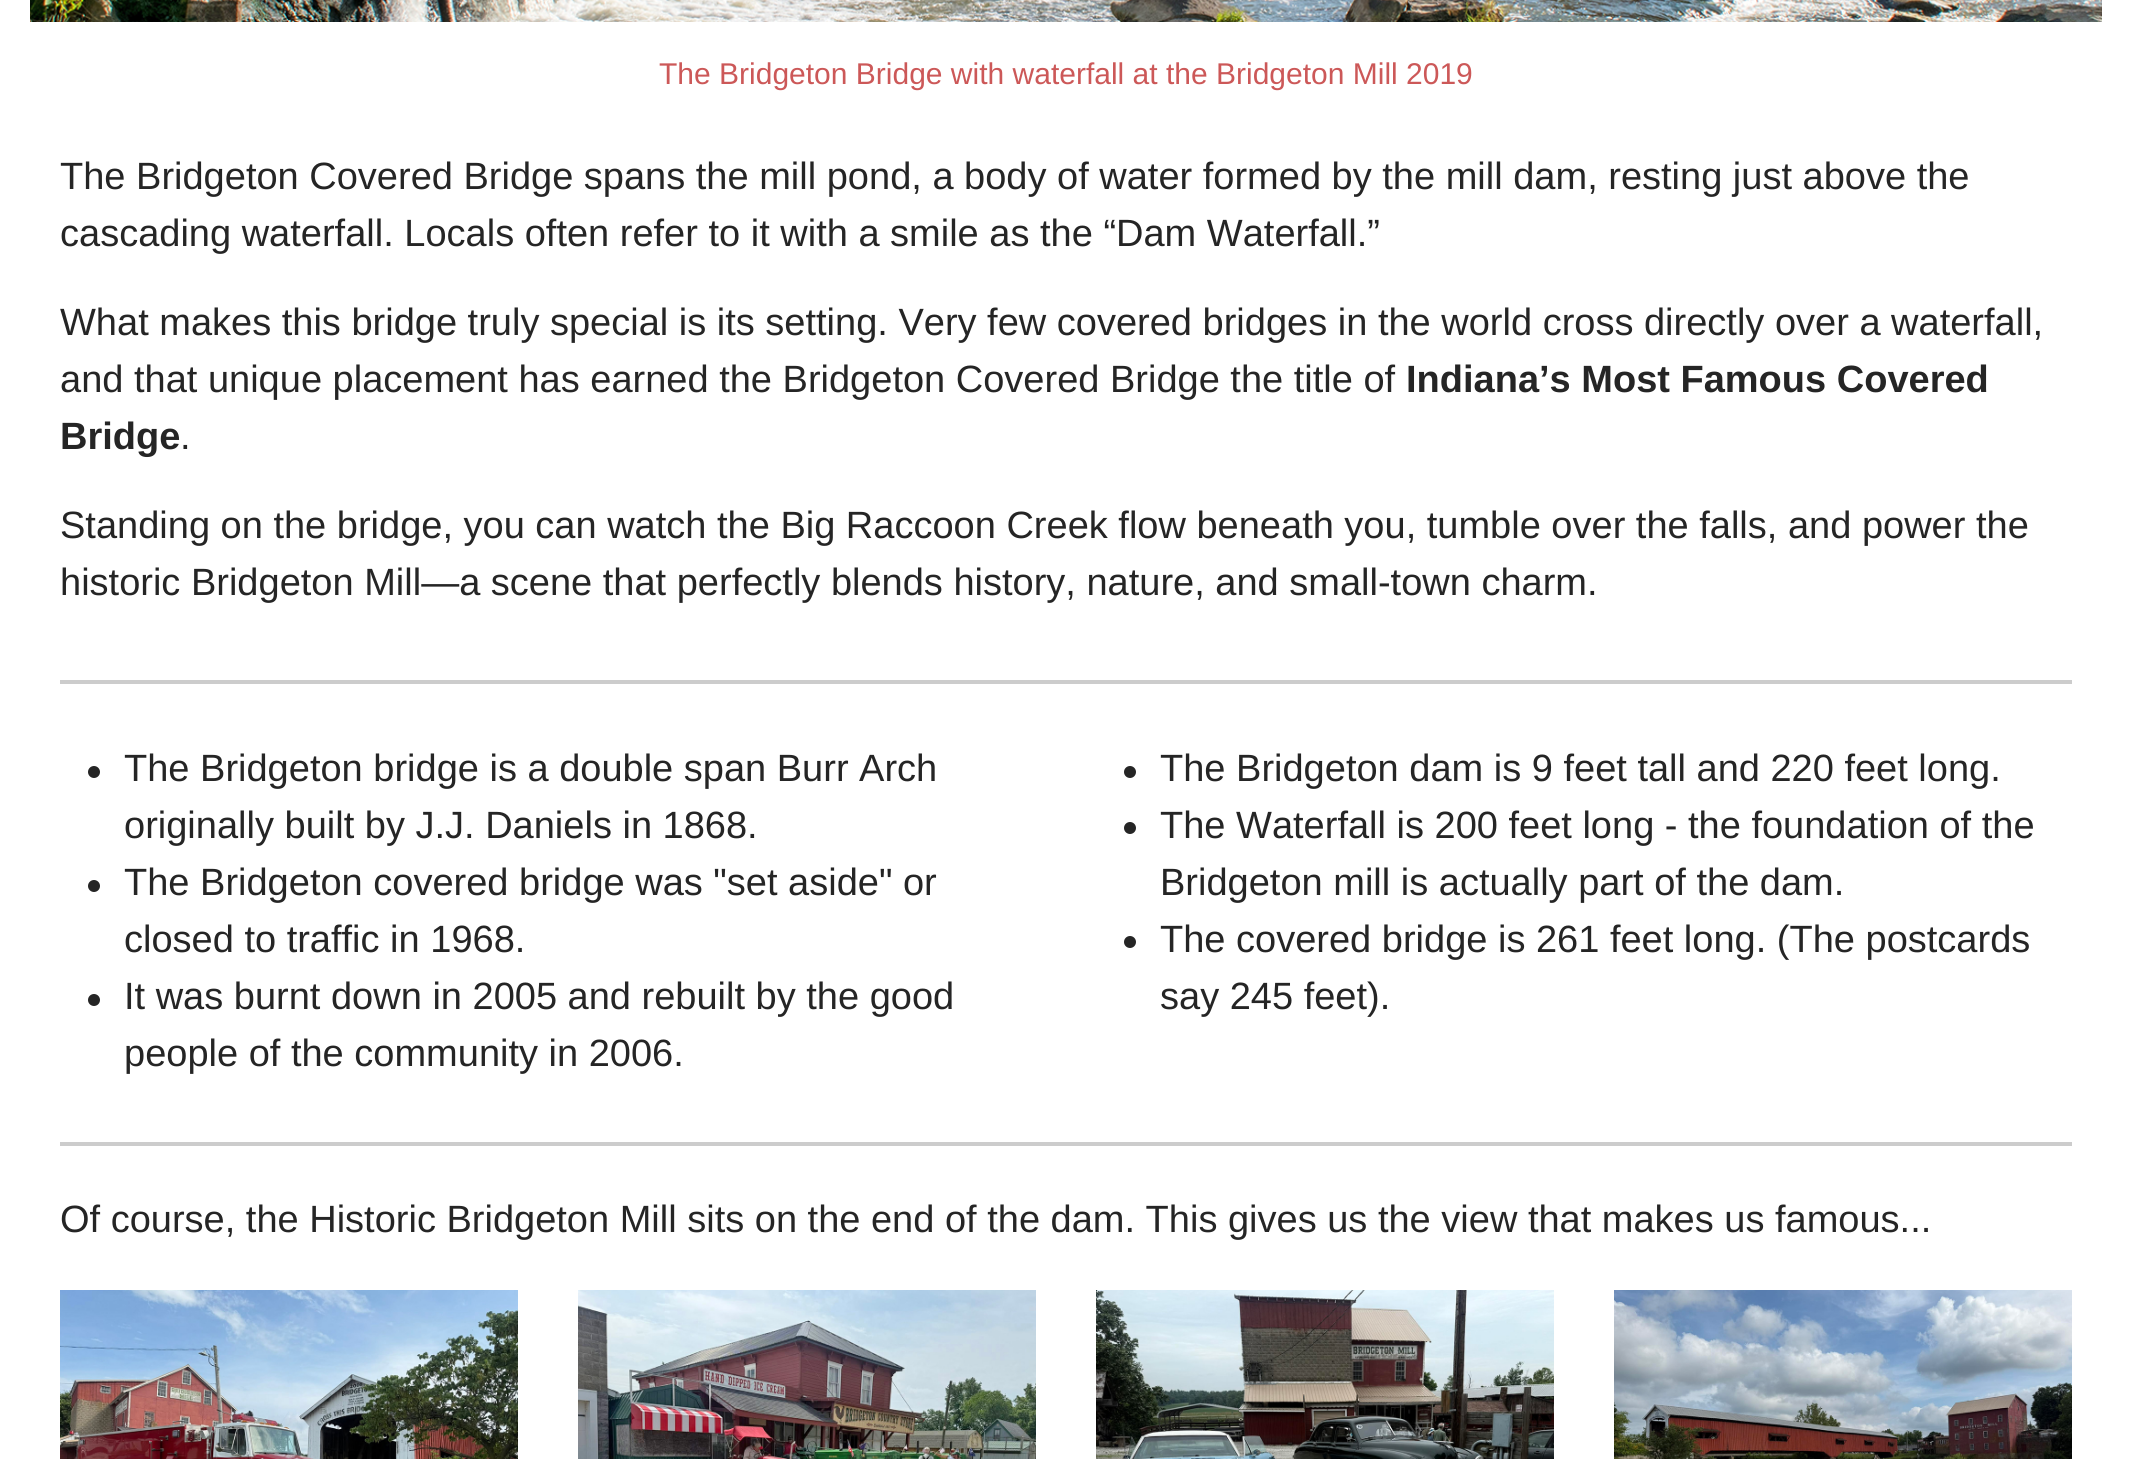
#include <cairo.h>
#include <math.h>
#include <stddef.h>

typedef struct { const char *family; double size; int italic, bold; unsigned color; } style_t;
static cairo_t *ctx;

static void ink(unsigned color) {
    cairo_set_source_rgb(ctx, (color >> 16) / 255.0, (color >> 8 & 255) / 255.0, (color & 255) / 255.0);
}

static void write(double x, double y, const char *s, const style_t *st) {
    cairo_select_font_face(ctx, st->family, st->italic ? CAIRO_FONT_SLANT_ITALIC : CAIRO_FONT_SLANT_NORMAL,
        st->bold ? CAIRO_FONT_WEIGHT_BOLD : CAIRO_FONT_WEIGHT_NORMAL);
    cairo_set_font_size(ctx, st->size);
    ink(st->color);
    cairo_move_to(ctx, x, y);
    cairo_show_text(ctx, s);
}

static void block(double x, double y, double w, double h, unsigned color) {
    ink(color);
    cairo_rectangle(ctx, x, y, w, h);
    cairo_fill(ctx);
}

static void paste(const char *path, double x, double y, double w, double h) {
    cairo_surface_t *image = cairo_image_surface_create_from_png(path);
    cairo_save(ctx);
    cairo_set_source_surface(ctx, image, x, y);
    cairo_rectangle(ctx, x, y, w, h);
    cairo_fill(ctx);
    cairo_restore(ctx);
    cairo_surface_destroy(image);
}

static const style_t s1 = {"Liberation Sans", 30, 0, 0, 0xcc5858};
static const style_t s2 = {"Liberation Sans", 38, 0, 0, 0x252525};
static const style_t s3 = {"Liberation Sans", 38, 0, 1, 0x252525};

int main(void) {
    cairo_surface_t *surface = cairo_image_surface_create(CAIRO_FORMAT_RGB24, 2131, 1459);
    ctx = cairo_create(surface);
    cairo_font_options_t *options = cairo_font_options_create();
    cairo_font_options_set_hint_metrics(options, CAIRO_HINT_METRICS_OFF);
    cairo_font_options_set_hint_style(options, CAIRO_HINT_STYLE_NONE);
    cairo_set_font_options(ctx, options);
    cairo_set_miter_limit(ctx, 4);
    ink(0xffffff);
    cairo_paint(ctx);
    paste("pic1.png", 30, 0, 2072, 22);
    write(659, 84, "The Bridgeton Bridge with waterfall at the Bridgeton Mill 2019", &s1);
    write(60, 189, "The Bridgeton Covered Bridge spans the mill pond, a body of water formed by the mill dam, resting just above the", &s2);
    write(60, 246, "cascading waterfall. Locals often refer to it with a smile as the “Dam Waterfall.”", &s2);
    write(60, 335, "What makes this bridge truly special is its setting. Very few covered bridges in the world cross directly over a waterfall,", &s2);
    write(60, 392, "and that unique placement has earned the Bridgeton Covered Bridge the title of", &s2);
    write(1406, 392, "Indiana’s Most Famous Covered", &s3);
    write(60, 449, "Bridge", &s3);
    write(180, 449, ".", &s2);
    write(60, 538, "Standing on the bridge, you can watch the Big Raccoon Creek flow beneath you, tumble over the falls, and power the", &s2);
    write(60, 595, "historic Bridgeton Mill—a scene that perfectly blends history, nature, and small-town charm.", &s2);
    block(60, 680, 2012, 4, 0xcccccc);
    ink(0x252525);
    cairo_new_path(ctx);
    cairo_arc(ctx, 94, 772, 6, 0, 2 * M_PI);
    cairo_fill(ctx);
    write(124, 781, "The Bridgeton bridge is a double span Burr Arch", &s2);
    write(124, 838, "originally built by J.J. Daniels in 1868.", &s2);
    cairo_new_path(ctx);
    cairo_arc(ctx, 94, 886, 6, 0, 2 * M_PI);
    cairo_fill(ctx);
    write(124, 895, "The Bridgeton covered bridge was \"set aside\" or", &s2);
    write(124, 952, "closed to traffic in 1968.", &s2);
    cairo_new_path(ctx);
    cairo_arc(ctx, 94, 1000, 6, 0, 2 * M_PI);
    cairo_fill(ctx);
    write(124, 1009, "It was burnt down in 2005 and rebuilt by the good", &s2);
    write(124, 1066, "people of the community in 2006.", &s2);
    cairo_new_path(ctx);
    cairo_arc(ctx, 1130, 772, 6, 0, 2 * M_PI);
    cairo_fill(ctx);
    write(1160, 781, "The Bridgeton dam is 9 feet tall and 220 feet long.", &s2);
    cairo_new_path(ctx);
    cairo_arc(ctx, 1130, 828, 6, 0, 2 * M_PI);
    cairo_fill(ctx);
    write(1160, 838, "The Waterfall is 200 feet long - the foundation of the", &s2);
    write(1160, 895, "Bridgeton mill is actually part of the dam.", &s2);
    cairo_new_path(ctx);
    cairo_arc(ctx, 1130, 942, 6, 0, 2 * M_PI);
    cairo_fill(ctx);
    write(1160, 952, "The covered bridge is 261 feet long. (The postcards", &s2);
    write(1160, 1009, "say 245 feet).", &s2);
    block(60, 1142, 2012, 4, 0xcccccc);
    write(60, 1232, "Of course, the Historic Bridgeton Mill sits on the end of the dam. This gives us the view that makes us famous...", &s2);
    paste("pic2.png", 60, 1290, 458, 169);
    paste("pic3.png", 578, 1290, 458, 169);
    paste("pic4.png", 1096, 1290, 458, 169);
    paste("pic5.png", 1614, 1290, 458, 169);
    cairo_surface_write_to_png(surface, "screenshot.png");
    cairo_font_options_destroy(options);
    cairo_destroy(ctx);
    cairo_surface_destroy(surface);
    return 0;
}
